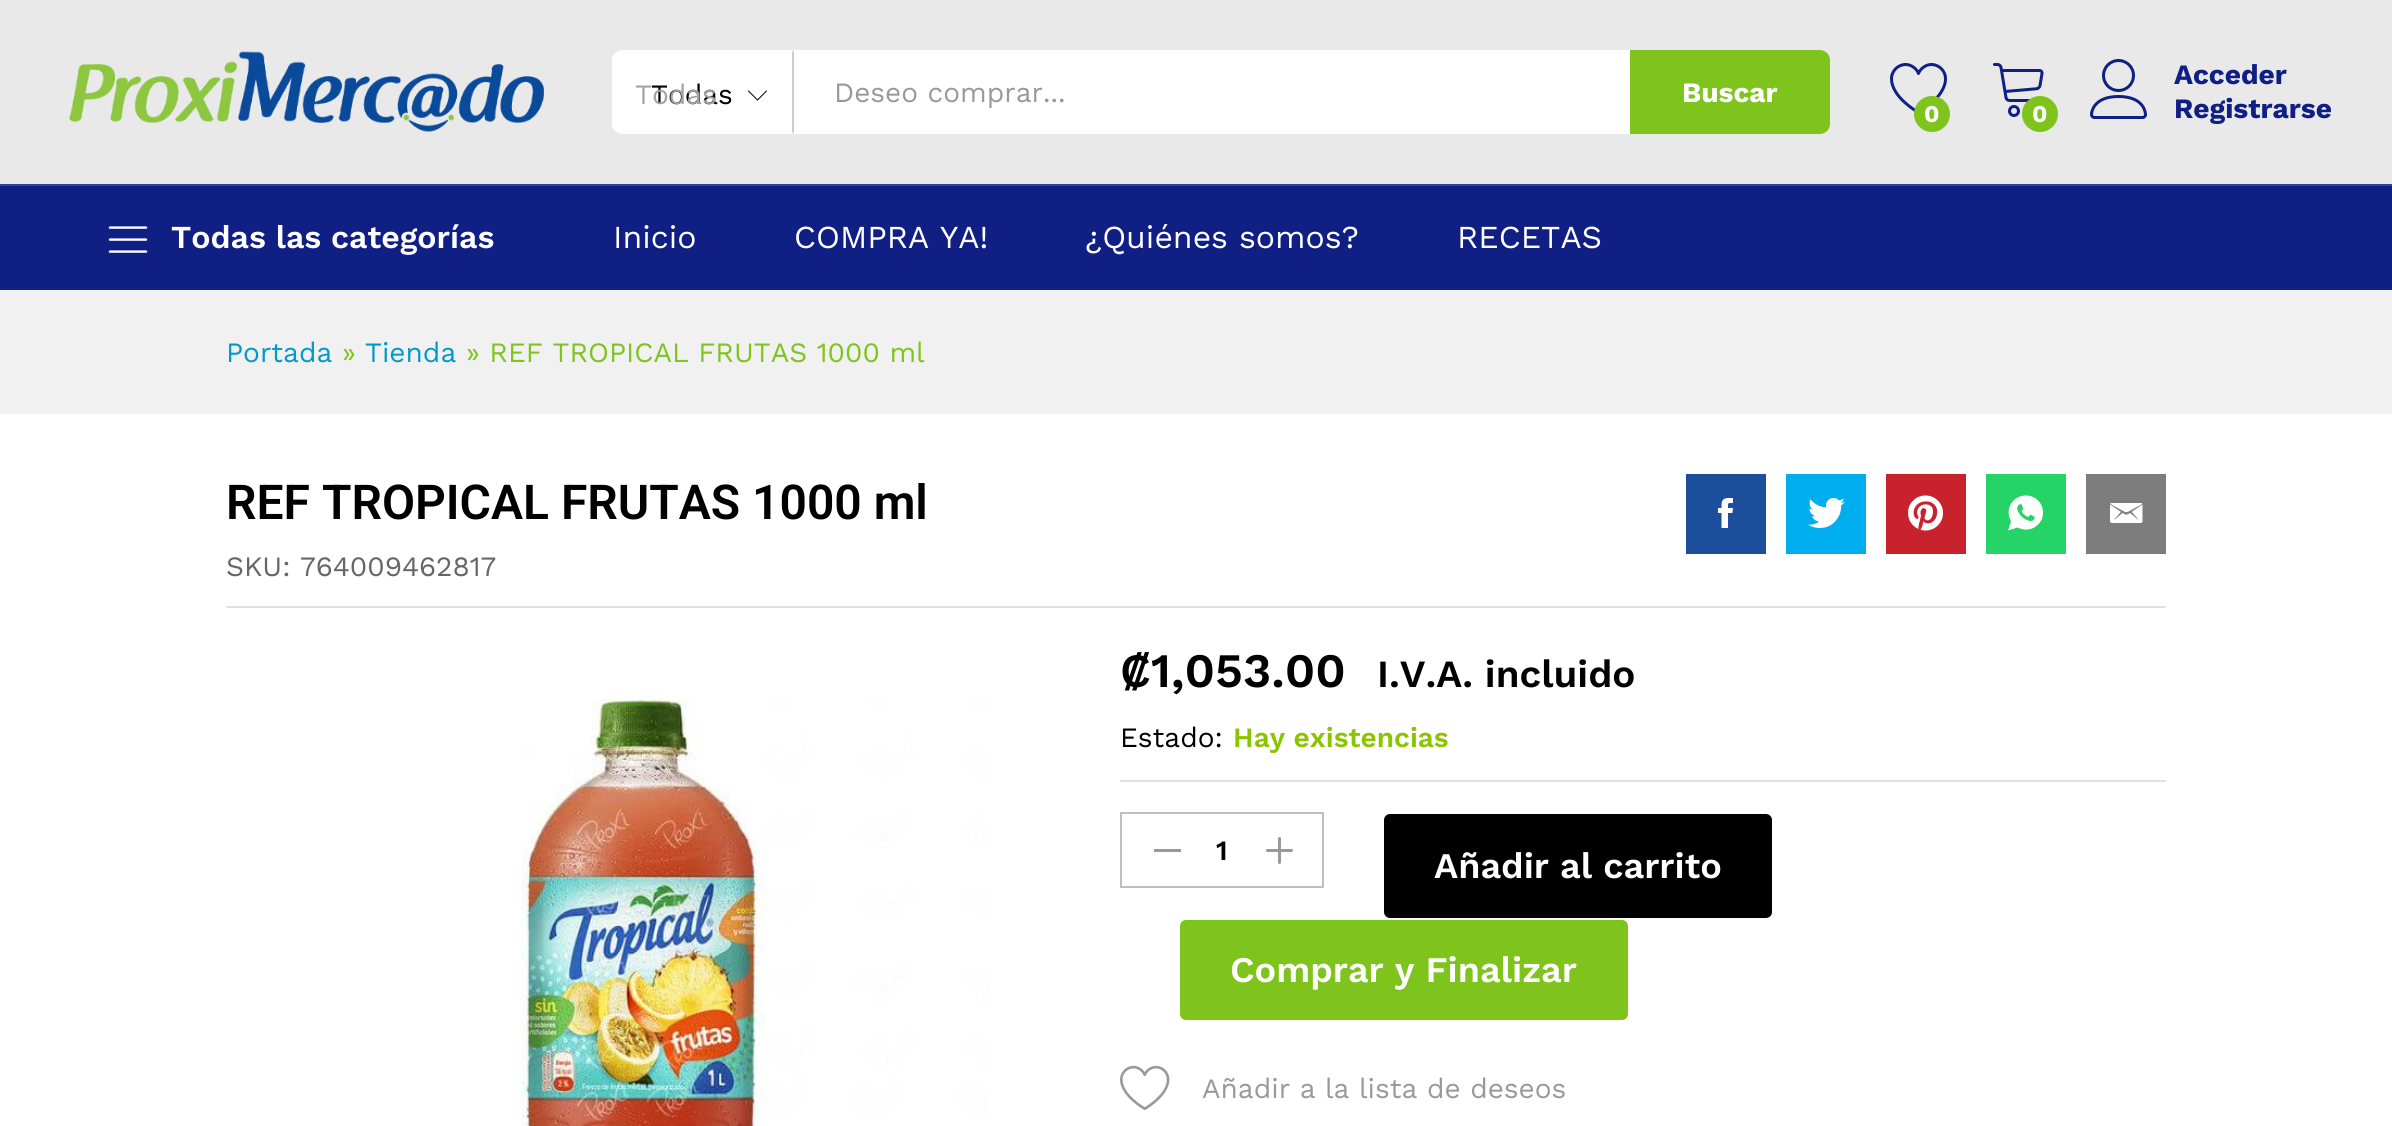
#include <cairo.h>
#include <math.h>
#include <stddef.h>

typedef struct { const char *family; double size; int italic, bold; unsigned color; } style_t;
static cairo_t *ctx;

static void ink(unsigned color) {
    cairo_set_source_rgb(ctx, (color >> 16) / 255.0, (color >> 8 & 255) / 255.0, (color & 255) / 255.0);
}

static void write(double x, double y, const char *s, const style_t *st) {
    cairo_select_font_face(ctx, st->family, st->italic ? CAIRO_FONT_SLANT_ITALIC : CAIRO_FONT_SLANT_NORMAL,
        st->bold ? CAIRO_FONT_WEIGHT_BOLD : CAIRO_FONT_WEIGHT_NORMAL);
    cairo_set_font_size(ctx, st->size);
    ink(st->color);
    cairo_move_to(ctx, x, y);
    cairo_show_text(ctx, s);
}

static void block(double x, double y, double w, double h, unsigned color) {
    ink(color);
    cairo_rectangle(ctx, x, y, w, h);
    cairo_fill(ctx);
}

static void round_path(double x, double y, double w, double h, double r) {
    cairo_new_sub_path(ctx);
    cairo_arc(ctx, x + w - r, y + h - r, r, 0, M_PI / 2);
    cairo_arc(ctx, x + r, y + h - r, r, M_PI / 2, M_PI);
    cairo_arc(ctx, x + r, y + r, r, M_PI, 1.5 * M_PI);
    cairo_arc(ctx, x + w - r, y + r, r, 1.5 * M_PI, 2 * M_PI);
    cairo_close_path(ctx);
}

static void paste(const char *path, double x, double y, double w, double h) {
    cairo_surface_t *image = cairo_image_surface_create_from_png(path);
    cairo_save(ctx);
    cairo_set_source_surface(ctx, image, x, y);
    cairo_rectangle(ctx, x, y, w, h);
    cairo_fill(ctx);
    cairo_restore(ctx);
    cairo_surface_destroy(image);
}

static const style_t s1 = {"Work Sans", 28, 0, 0, 0x000000};
static const style_t s2 = {"Work Sans", 28, 0, 0, 0xa3a3a3};
static const style_t s3 = {"Work Sans", 28, 0, 0, 0x999999};
static const style_t s4 = {"Work Sans", 28, 0, 1, 0xffffff};
static const style_t s5 = {"Work Sans", 24, 0, 1, 0xffffff};
static const style_t s6 = {"Work Sans", 28, 0, 1, 0x101f84};
static const style_t s7 = {"Work Sans SemiBold", 32, 0, 0, 0xffffff};
static const style_t s8 = {"Work Sans", 32, 0, 0, 0xffffff};
static const style_t s9 = {"Work Sans", 28, 0, 0, 0x0099cc};
static const style_t s10 = {"Work Sans", 28, 0, 0, 0x7fc41c};
static const style_t s11 = {"Roboto SemiBold", 48, 0, 0, 0x000000};
static const style_t s12 = {"Work Sans", 28, 0, 0, 0x666666};
static const style_t s13 = {"Work Sans SemiBold", 48, 0, 0, 0x000000};
static const style_t s14 = {"Work Sans SemiBold", 38.5, 0, 0, 0x000000};
static const style_t s15 = {"Work Sans SemiBold", 28, 0, 0, 0x8bc500};
static const style_t s16 = {"Work Sans SemiBold", 28, 0, 0, 0x000000};
static const style_t s17 = {"Work Sans SemiBold", 36, 0, 0, 0xffffff};

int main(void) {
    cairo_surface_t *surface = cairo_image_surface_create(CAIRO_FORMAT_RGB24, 2392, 1126);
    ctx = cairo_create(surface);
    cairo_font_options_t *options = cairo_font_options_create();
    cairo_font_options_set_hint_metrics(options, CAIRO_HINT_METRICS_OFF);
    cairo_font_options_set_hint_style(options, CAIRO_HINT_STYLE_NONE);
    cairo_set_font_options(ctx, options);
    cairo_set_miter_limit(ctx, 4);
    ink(0xffffff);
    cairo_paint(ctx);
    block(0, 0, 2392, 184, 0xe9e9e9);
    paste("pic1.png", 69, 51, 475, 81);
    ink(0xffffff);
    cairo_new_path(ctx);
    cairo_move_to(ctx, 622, 50);
    cairo_line_to(ctx, 794, 50);
    cairo_line_to(ctx, 794, 134);
    cairo_line_to(ctx, 622, 134);
    cairo_curve_to(ctx, 616.5, 134, 612, 129.5, 612, 124);
    cairo_line_to(ctx, 612, 60);
    cairo_curve_to(ctx, 612, 54.5, 616.5, 50, 622, 50);
    cairo_close_path(ctx);
    cairo_fill(ctx);
    write(651, 104, "Todas", &s1);
    write(635, 104, "Todas", &s2);
    ink(0xcccccc);
    cairo_new_path(ctx);
    cairo_move_to(ctx, 794, 50);
    cairo_line_to(ctx, 792, 52);
    cairo_line_to(ctx, 792, 132);
    cairo_line_to(ctx, 794, 134);
    cairo_close_path(ctx);
    cairo_fill(ctx);
    paste("pic2.png", 748, 90, 19, 11);
    block(794, 50, 836, 84, 0xffffff);
    write(834, 102, "Deseo comprar...", &s3);
    ink(0x7fc41c);
    cairo_new_path(ctx);
    cairo_move_to(ctx, 1630, 50);
    cairo_line_to(ctx, 1820, 50);
    cairo_curve_to(ctx, 1825.5, 50, 1830, 54.5, 1830, 60);
    cairo_line_to(ctx, 1830, 124);
    cairo_curve_to(ctx, 1830, 129.5, 1825.5, 134, 1820, 134);
    cairo_line_to(ctx, 1630, 134);
    cairo_close_path(ctx);
    cairo_fill(ctx);
    write(1682, 102, "Buscar", &s4);
    paste("pic3.png", 1890, 63, 57, 49);
    ink(0x7fc41c);
    cairo_arc(ctx, 1932, 114, 18, 0, 2 * M_PI);
    cairo_fill(ctx);
    write(1924, 122, "0", &s5);
    paste("pic4.png", 1993, 63, 51, 54);
    ink(0x7fc41c);
    cairo_arc(ctx, 2040, 114, 18, 0, 2 * M_PI);
    cairo_fill(ctx);
    write(2032, 122, "0", &s5);
    paste("pic5.png", 2090, 59, 57, 60);
    write(2174, 84, "Acceder", &s6);
    write(2174, 118, "Registrarse", &s6);
    block(0, 186, 2392, 104, 0x101f84);
    block(0, 184, 2392, 2, 0x344196);
    paste("pic6.png", 108, 226, 40, 27);
    write(171, 248, "Todas las categorías", &s7);
    write(613, 248, "Inicio", &s8);
    write(794, 248, "COMPRA YA!", &s8);
    write(1085, 248, "¿Quiénes somos?", &s8);
    write(1457, 248, "RECETAS", &s8);
    block(0, 290, 2392, 124, 0xf1f1f1);
    write(226, 362, "Portada", &s9);
    write(342, 362, "»", &s10);
    write(365, 362, "Tienda", &s9);
    write(466, 362, "» REF TROPICAL FRUTAS 1000 ml", &s10);
    block(226, 606, 1940, 2, 0xe1e1e1);
    write(226, 519, "REF TROPICAL FRUTAS 1000 ml", &s11);
    write(226, 576, "SKU: 764009462817", &s12);
    block(1686, 474, 80, 80, 0x1b4e9b);
    paste("pic7.png", 1718, 498, 15, 30);
    block(1786, 474, 80, 80, 0x00aeef);
    paste("pic8.png", 1808, 498, 37, 30);
    block(1886, 474, 80, 80, 0xc8232c);
    paste("pic9.png", 1908, 495, 35, 36);
    block(1986, 474, 80, 80, 0x25d366);
    paste("pic10.png", 2008, 495, 35, 36);
    block(2086, 474, 80, 80, 0x7d7d7d);
    paste("pic11.png", 2110, 503, 33, 20);
    paste("pic12.png", 521, 699, 469, 427);
    write(1120, 687, "₡1,053.00", &s13);
    write(1377, 687, "I.V.A. incluido", &s14);
    block(1120, 780, 1046, 2, 0xe1e1e1);
    write(1120, 747, "Estado:", &s1);
    write(1233, 747, "Hay existencias", &s15);
    cairo_rectangle(ctx, 1121, 813, 202, 74);
    ink(0xbfbfbf);
    cairo_stroke(ctx);
    block(1154, 849, 27, 3, 0x999999);
    write(1216, 860, "1", &s16);
    paste("pic13.png", 1266, 837, 27, 27);
    round_path(1384, 814, 388, 104, 6);
    cairo_fill(ctx);
    write(1434, 878, "Añadir al carrito", &s17);
    ink(0x7fc41c);
    round_path(1180, 920, 448, 100, 6);
    cairo_fill(ctx);
    write(1230, 982, "Comprar y Finalizar", &s17);
    paste("pic14.png", 1120, 1065, 50, 45);
    write(1202, 1098, "Añadir a la lista de deseos", &s3);
    cairo_surface_write_to_png(surface, "screenshot.png");
    cairo_font_options_destroy(options);
    cairo_destroy(ctx);
    cairo_surface_destroy(surface);
    return 0;
}
